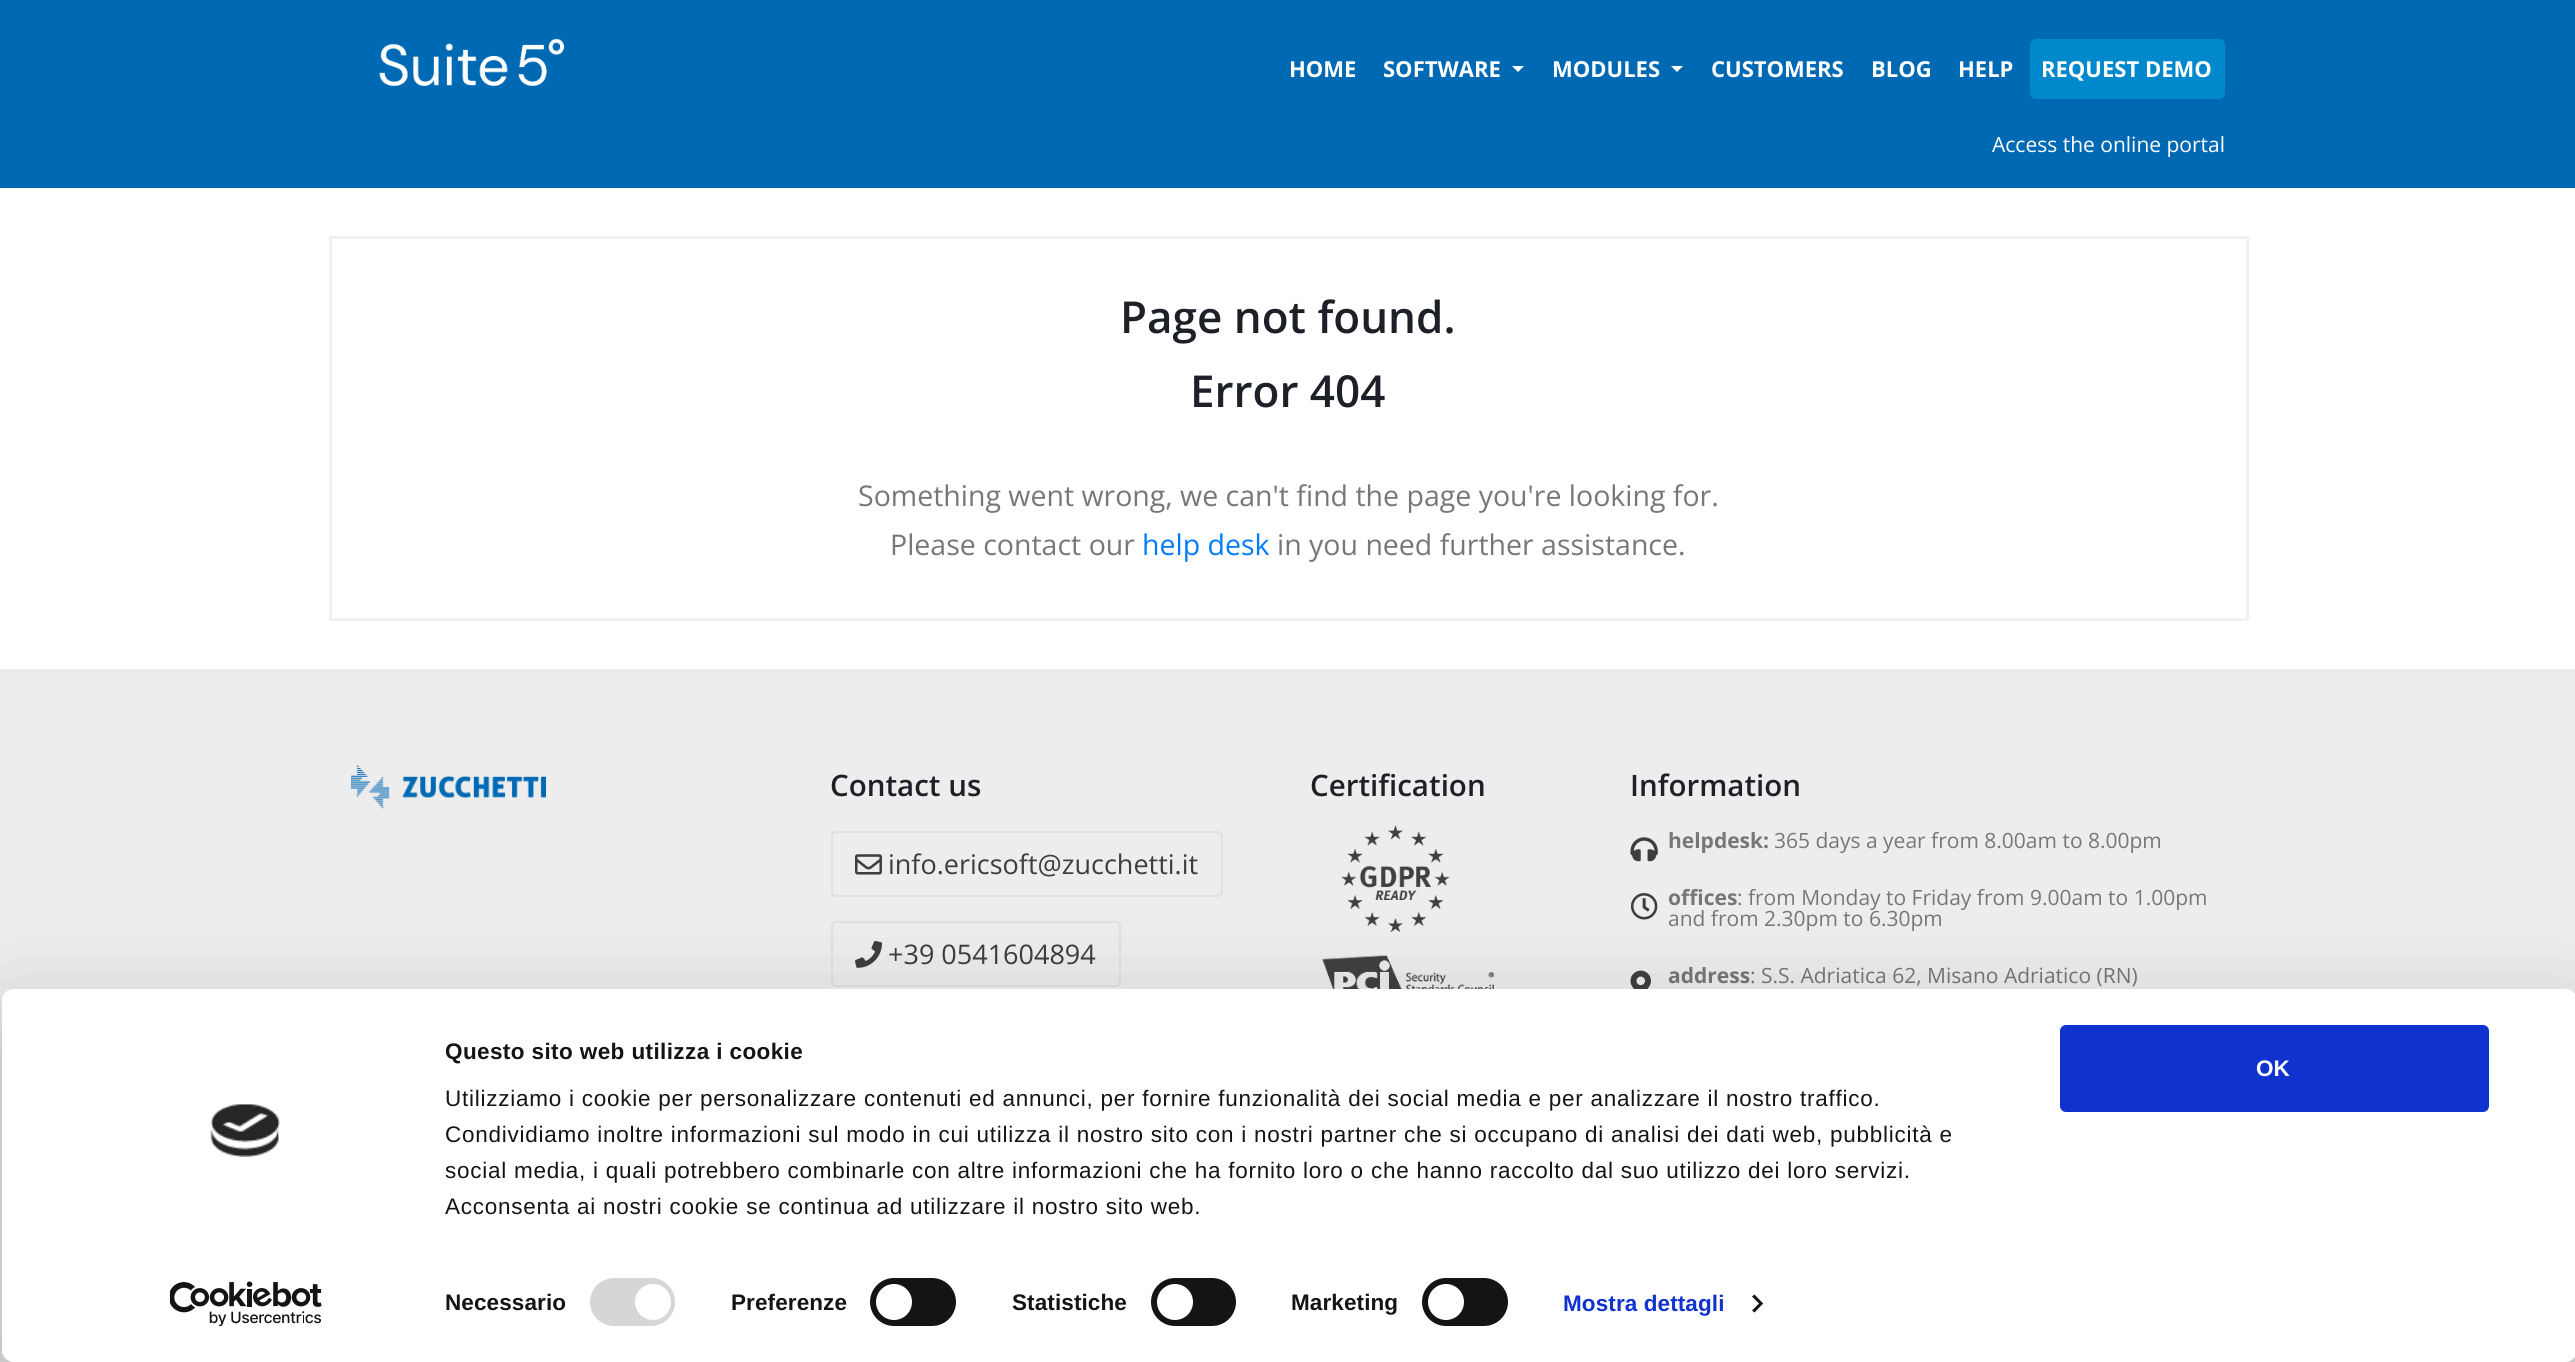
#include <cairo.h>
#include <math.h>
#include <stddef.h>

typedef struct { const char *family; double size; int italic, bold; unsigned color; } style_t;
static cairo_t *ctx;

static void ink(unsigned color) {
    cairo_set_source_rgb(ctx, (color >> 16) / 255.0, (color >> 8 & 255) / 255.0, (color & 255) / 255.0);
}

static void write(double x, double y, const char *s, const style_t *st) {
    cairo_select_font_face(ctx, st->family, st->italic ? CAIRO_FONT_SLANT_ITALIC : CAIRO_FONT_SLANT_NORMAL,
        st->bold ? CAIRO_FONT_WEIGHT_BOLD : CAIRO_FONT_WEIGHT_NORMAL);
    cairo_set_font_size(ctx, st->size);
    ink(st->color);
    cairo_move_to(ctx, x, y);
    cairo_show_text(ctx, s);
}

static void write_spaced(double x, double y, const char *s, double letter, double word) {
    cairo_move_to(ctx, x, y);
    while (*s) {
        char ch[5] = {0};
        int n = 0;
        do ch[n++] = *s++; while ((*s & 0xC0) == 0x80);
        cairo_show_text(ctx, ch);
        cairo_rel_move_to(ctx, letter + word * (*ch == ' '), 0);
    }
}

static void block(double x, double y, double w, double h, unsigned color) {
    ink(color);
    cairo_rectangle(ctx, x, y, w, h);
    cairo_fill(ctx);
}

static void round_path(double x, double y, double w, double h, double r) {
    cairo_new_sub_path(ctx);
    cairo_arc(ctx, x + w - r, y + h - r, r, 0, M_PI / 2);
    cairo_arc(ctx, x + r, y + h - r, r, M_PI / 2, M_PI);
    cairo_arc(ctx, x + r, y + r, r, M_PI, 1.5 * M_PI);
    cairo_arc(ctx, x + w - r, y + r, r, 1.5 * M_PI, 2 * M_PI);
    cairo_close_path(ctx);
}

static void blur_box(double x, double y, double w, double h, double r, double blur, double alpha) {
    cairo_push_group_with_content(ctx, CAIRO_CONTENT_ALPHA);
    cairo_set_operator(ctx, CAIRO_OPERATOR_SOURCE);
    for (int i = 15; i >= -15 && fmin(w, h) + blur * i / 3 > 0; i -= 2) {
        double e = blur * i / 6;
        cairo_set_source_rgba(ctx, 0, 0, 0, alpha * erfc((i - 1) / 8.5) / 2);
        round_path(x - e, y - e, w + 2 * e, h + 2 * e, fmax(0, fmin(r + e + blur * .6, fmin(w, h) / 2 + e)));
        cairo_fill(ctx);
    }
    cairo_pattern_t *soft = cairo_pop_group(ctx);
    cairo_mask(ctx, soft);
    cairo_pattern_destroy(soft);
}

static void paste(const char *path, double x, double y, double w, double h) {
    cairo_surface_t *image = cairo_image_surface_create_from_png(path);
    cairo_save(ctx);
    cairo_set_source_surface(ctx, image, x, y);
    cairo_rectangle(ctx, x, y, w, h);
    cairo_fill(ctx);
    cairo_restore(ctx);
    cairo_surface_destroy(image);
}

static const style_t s1 = {"Open Sans", 22, 0, 1, 0xffffff};
static const style_t s2 = {"Open Sans", 21, 0, 0, 0xffffff};
static const style_t s3 = {"Open Sans SemiBold", 44, 0, 0, 0x1d2127};
static const style_t s4 = {"Open Sans", 28.5, 0, 0, 0x777777};
static const style_t s5 = {"Open Sans", 28.5, 0, 0, 0x007bff};
static const style_t s6 = {"Open Sans SemiBold", 29.5, 0, 0, 0x1d2127};
static const style_t s7 = {"Open Sans", 27, 0, 0, 0x3e3e3e};
static const style_t s8 = {"Open Sans", 21, 0, 1, 0x777777};
static const style_t s9 = {"Open Sans", 21, 0, 0, 0x777777};
static const style_t s10 = {"Liberation Sans", 22.5, 0, 1, 0xffffff};

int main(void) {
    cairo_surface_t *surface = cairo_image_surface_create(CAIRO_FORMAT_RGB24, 2575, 1362);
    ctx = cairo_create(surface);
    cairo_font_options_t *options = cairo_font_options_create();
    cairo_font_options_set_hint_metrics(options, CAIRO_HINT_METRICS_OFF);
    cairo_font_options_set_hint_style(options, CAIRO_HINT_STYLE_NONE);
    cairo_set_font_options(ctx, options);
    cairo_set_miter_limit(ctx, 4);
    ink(0xffffff);
    cairo_paint(ctx);
    block(0, 0, 2575, 188, 0x0069b4);
    paste("pic1.png", 379, 38, 185, 49);
    write(1289, 77, "HOME", &s1);
    write(1383, 77, "SOFTWARE", &s1);
    cairo_new_path(ctx);
    cairo_move_to(ctx, 1512, 66);
    cairo_line_to(ctx, 1524, 66);
    cairo_line_to(ctx, 1518, 72);
    cairo_close_path(ctx);
    cairo_fill(ctx);
    write(1552, 77, "MODULES", &s1);
    cairo_new_path(ctx);
    cairo_move_to(ctx, 1671, 66);
    cairo_line_to(ctx, 1683, 66);
    cairo_line_to(ctx, 1677, 72);
    cairo_close_path(ctx);
    cairo_fill(ctx);
    write(1711, 77, "CUSTOMERS", &s1);
    write(1871, 77, "BLOG", &s1);
    write(1958, 77, "HELP", &s1);
    ink(0x0088cc);
    round_path(2030, 39, 195, 60, 6);
    cairo_fill(ctx);
    write(2041, 77, "REQUEST DEMO", &s1);
    write(1992, 152, "Access the online portal", &s2);
    cairo_rectangle(ctx, 330.5, 237.5, 1917, 382);
    ink(0xf1f1f1);
    cairo_set_line_width(ctx, 3);
    cairo_stroke(ctx);
    write(1120, 333, "Page not found.", &s3);
    write(1190, 407, "Error 404", &s3);
    write(858, 506, "Something went wrong, we can't find the page you're looking for.", &s4);
    write(890, 555, "Please contact our", &s4);
    write(1142, 555, "help desk", &s5);
    write(1277, 555, "in you need further assistance.", &s4);
    block(0, 669, 2575, 663, 0xededed);
    paste("pic2.png", 351, 765, 195, 44);
    write(830, 796, "Contact us", &s6);
    round_path(832, 832, 390, 64, 4);
    ink(0xe0e0e0);
    cairo_set_line_width(ctx, 2);
    cairo_stroke(ctx);
    paste("pic3.png", 855, 854, 27, 21);
    write(888, 874, "info.ericsoft@zucchetti.it", &s7);
    round_path(832, 922, 288, 64, 4);
    ink(0xe0e0e0);
    cairo_stroke(ctx);
    paste("pic4.png", 855, 940, 27, 28);
    write(888, 964, "+39 0541604894", &s7);
    write(1310, 796, "Certification", &s6);
    paste("pic5.png", 1341, 825, 109, 107);
    paste("pic6.png", 1322, 955, 172, 34);
    write(1630, 796, "Information", &s6);
    paste("pic7.png", 1630, 837, 28, 25);
    write(1668, 848, "helpdesk:", &s8);
    write(1774, 848, "365 days a year from 8.00am to 8.00pm", &s9);
    paste("pic8.png", 1630, 893, 28, 27);
    write(1668, 905, "offices", &s8);
    write(1737, 905, ": from Monday to Friday from 9.00am to 1.00pm", &s9);
    write(1668, 926, "and from 2.30pm to 6.30pm", &s9);
    paste("pic9.png", 1630, 970, 21, 19);
    write(1668, 983, "address", &s8);
    write(1750, 983, ": S.S. Adriatica 62, Misano Adriatico (RN)", &s9);
    block(0, 1332, 2575, 30, 0xececec);
    cairo_save(ctx);
    cairo_set_fill_rule(ctx, CAIRO_FILL_RULE_EVEN_ODD);
    cairo_new_path(ctx);
    cairo_move_to(ctx, 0, 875);
    cairo_line_to(ctx, 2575, 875);
    cairo_line_to(ctx, 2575, 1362);
    cairo_line_to(ctx, 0, 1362);
    cairo_close_path(ctx);
    cairo_move_to(ctx, 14, 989);
    cairo_line_to(ctx, 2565, 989);
    cairo_curve_to(ctx, 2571.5, 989, 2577, 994.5, 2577, 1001);
    cairo_line_to(ctx, 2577, 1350);
    cairo_curve_to(ctx, 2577, 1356.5, 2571.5, 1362, 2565, 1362);
    cairo_line_to(ctx, 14, 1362);
    cairo_curve_to(ctx, 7.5, 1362, 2, 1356.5, 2, 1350);
    cairo_line_to(ctx, 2, 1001);
    cairo_curve_to(ctx, 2, 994.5, 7.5, 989, 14, 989);
    cairo_close_path(ctx);
    cairo_clip(ctx);
    ink(0x000000);
    blur_box(2, 1034, 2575, 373, 12, 52.5, 0.3);
    cairo_restore(ctx);
    ink(0xffffff);
    round_path(2, 989, 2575, 373, 12);
    cairo_fill(ctx);
    cairo_select_font_face(ctx, "Liberation Sans", CAIRO_FONT_SLANT_NORMAL, CAIRO_FONT_WEIGHT_BOLD);
    cairo_set_font_size(ctx, 22.5);
    ink(0x141414);
    write_spaced(445, 1059, "Questo sito web utilizza i cookie", 0.4, 0);
    cairo_select_font_face(ctx, "Liberation Sans", CAIRO_FONT_SLANT_NORMAL, CAIRO_FONT_WEIGHT_NORMAL);
    write_spaced(445, 1106, "Utilizziamo i cookie per personalizzare contenuti ed annunci, per fornire funzionalità dei social media e per analizzare il nostro traffico.", 0.75, 0);
    write_spaced(445, 1142, "Condividiamo inoltre informazioni sul modo in cui utilizza il nostro sito con i nostri partner che si occupano di analisi dei dati web, pubblicità e", 0.75, 0);
    write_spaced(445, 1178, "social media, i quali potrebbero combinarle con altre informazioni che ha fornito loro o che hanno raccolto dal suo utilizzo dei loro servizi.", 0.75, 0);
    write_spaced(445, 1214, "Acconsenta ai nostri cookie se continua ad utilizzare il nostro sito web.", 0.75, 0);
    cairo_select_font_face(ctx, "Liberation Sans", CAIRO_FONT_SLANT_NORMAL, CAIRO_FONT_WEIGHT_BOLD);
    write_spaced(445, 1310, "Necessario", 0.1, 0);
    ink(0xd6d6d6);
    round_path(590, 1278, 85, 48, 24);
    cairo_fill(ctx);
    ink(0xffffff);
    cairo_arc(ctx, 653, 1302, 18, 0, 2 * M_PI);
    cairo_fill(ctx);
    ink(0x141414);
    write_spaced(731, 1310, "Preferenze", 0.1, 0);
    round_path(870, 1278, 86, 48, 24);
    cairo_fill(ctx);
    ink(0xffffff);
    cairo_arc(ctx, 894, 1302, 18, 0, 2 * M_PI);
    cairo_fill(ctx);
    ink(0x141414);
    write_spaced(1012, 1310, "Statistiche", 0.1, 0);
    round_path(1151, 1278, 85, 48, 24);
    cairo_fill(ctx);
    ink(0xffffff);
    cairo_arc(ctx, 1175, 1302, 18, 0, 2 * M_PI);
    cairo_fill(ctx);
    ink(0x141414);
    write_spaced(1291, 1310, "Marketing", 0.1, 0);
    round_path(1422, 1278, 86, 48, 24);
    cairo_fill(ctx);
    ink(0xffffff);
    cairo_arc(ctx, 1446, 1302, 18, 0, 2 * M_PI);
    cairo_fill(ctx);
    ink(0x1032cf);
    write_spaced(1563, 1311, "Mostra dettagli", 0.1, 0);
    ink(0x141414);
    cairo_new_path(ctx);
    cairo_move_to(ctx, 1754.5, 1294.5);
    cairo_line_to(ctx, 1763, 1303.5);
    cairo_line_to(ctx, 1761, 1305.5);
    cairo_line_to(ctx, 1752, 1296.5);
    cairo_close_path(ctx);
    cairo_fill(ctx);
    cairo_new_path(ctx);
    cairo_move_to(ctx, 1761, 1301.5);
    cairo_line_to(ctx, 1763, 1303.5);
    cairo_line_to(ctx, 1754.5, 1312.5);
    cairo_line_to(ctx, 1752, 1310.5);
    cairo_close_path(ctx);
    cairo_fill(ctx);
    ink(0x1032cf);
    round_path(2061.5, 1026.5, 426, 84, 4.5);
    cairo_fill_preserve(ctx);
    cairo_set_line_width(ctx, 3);
    cairo_stroke(ctx);
    write(2256, 1076, "OK", &s10);
    paste("pic10.png", 210, 1104, 70, 53);
    paste("pic11.png", 170, 1281, 152, 45);
    cairo_surface_write_to_png(surface, "screenshot.png");
    cairo_font_options_destroy(options);
    cairo_destroy(ctx);
    cairo_surface_destroy(surface);
    return 0;
}
